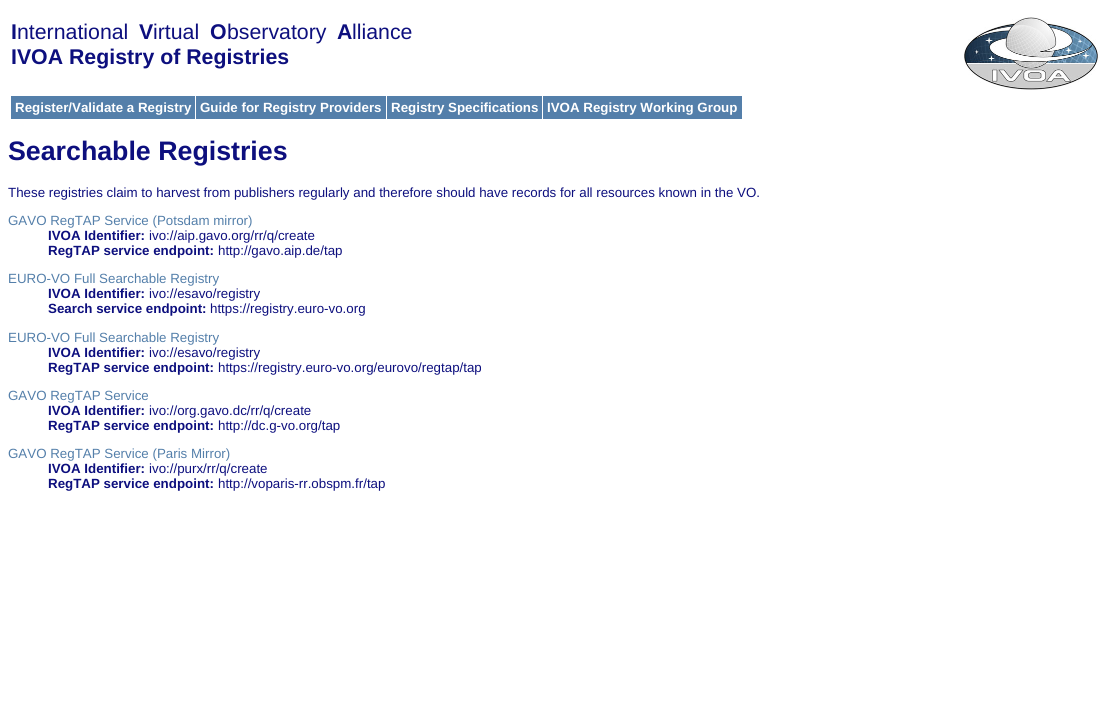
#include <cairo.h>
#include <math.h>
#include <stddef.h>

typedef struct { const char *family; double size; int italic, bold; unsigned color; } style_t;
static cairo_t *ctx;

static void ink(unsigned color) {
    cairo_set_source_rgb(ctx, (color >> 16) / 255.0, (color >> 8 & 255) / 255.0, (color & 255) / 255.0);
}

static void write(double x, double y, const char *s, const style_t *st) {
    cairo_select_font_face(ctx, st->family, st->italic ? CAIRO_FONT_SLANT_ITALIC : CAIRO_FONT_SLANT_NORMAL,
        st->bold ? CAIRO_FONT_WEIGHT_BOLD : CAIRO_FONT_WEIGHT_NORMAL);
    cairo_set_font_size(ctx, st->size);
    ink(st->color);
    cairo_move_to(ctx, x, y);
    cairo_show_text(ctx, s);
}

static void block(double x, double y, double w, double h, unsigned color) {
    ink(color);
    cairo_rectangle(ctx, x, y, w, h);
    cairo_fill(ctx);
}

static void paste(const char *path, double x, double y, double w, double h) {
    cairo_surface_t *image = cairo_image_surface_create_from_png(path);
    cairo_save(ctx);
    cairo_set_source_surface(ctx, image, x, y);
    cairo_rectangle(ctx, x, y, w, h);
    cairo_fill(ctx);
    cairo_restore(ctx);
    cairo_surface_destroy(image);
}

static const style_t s1 = {"Liberation Sans", 21.3, 0, 1, 0x0d0f7e};
static const style_t s2 = {"Liberation Sans", 21.3, 0, 0, 0x0d0f7e};
static const style_t s3 = {"Liberation Sans", 13.33, 0, 1, 0xffffff};
static const style_t s4 = {"Liberation Sans", 26.75, 0, 1, 0x0d0f7e};
static const style_t s5 = {"Liberation Sans", 13.33, 0, 0, 0x0d0f7e};
static const style_t s6 = {"Liberation Sans", 13.33, 0, 0, 0x547faa};
static const style_t s7 = {"Liberation Sans", 13.33, 0, 1, 0x0d0f7e};

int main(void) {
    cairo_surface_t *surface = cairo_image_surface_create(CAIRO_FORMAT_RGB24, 1117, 715);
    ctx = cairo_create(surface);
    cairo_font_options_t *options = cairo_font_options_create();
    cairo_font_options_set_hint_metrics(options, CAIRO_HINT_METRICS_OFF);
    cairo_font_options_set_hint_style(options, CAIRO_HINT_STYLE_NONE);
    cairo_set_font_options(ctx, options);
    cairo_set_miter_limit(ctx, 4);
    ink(0xffffff);
    cairo_paint(ctx);
    write(11, 39, "I", &s1);
    write(17, 39, "nternational", &s2);
    write(139, 39, "V", &s1);
    write(153, 39, "irtual", &s2);
    write(210, 39, "O", &s1);
    write(227, 39, "bservatory", &s2);
    write(337, 39, "A", &s1);
    write(352, 39, "lliance", &s2);
    write(11, 64, "IVOA Registry of Registries", &s1);
    paste("pic1.png", 964, 17, 136, 73);
    block(11, 96, 184, 23, 0x547faa);
    write(15, 112, "Register/Validate a Registry", &s3);
    block(196, 96, 190, 23, 0x547faa);
    write(200, 112, "Guide for Registry Providers", &s3);
    block(387, 96, 155, 23, 0x547faa);
    write(391, 112, "Registry Specifications", &s3);
    block(543, 96, 199, 23, 0x547faa);
    write(547, 112, "IVOA Registry Working Group", &s3);
    write(8, 160, "Searchable Registries", &s4);
    write(8, 197, "These registries claim to harvest from publishers regularly and therefore should have records for all resources known in the VO.", &s5);
    write(8, 225, "GAVO RegTAP Service (Potsdam mirror)", &s6);
    write(48, 240, "IVOA Identifier:", &s7);
    write(149, 240, "ivo://aip.gavo.org/rr/q/create", &s5);
    write(48, 255, "RegTAP service endpoint:", &s7);
    write(218, 255, "http://gavo.aip.de/tap", &s5);
    write(8, 283, "EURO-VO Full Searchable Registry", &s6);
    write(48, 298, "IVOA Identifier:", &s7);
    write(149, 298, "ivo://esavo/registry", &s5);
    write(48, 313, "Search service endpoint:", &s7);
    write(210, 313, "https://registry.euro-vo.org", &s5);
    write(8, 342, "EURO-VO Full Searchable Registry", &s6);
    write(48, 357, "IVOA Identifier:", &s7);
    write(149, 357, "ivo://esavo/registry", &s5);
    write(48, 372, "RegTAP service endpoint:", &s7);
    write(218, 372, "https://registry.euro-vo.org/eurovo/regtap/tap", &s5);
    write(8, 400, "GAVO RegTAP Service", &s6);
    write(48, 415, "IVOA Identifier:", &s7);
    write(149, 415, "ivo://org.gavo.dc/rr/q/create", &s5);
    write(48, 430, "RegTAP service endpoint:", &s7);
    write(218, 430, "http://dc.g-vo.org/tap", &s5);
    write(8, 458, "GAVO RegTAP Service (Paris Mirror)", &s6);
    write(48, 473, "IVOA Identifier:", &s7);
    write(149, 473, "ivo://purx/rr/q/create", &s5);
    write(48, 488, "RegTAP service endpoint:", &s7);
    write(218, 488, "http://voparis-rr.obspm.fr/tap", &s5);
    cairo_surface_write_to_png(surface, "screenshot.png");
    cairo_font_options_destroy(options);
    cairo_destroy(ctx);
    cairo_surface_destroy(surface);
    return 0;
}
